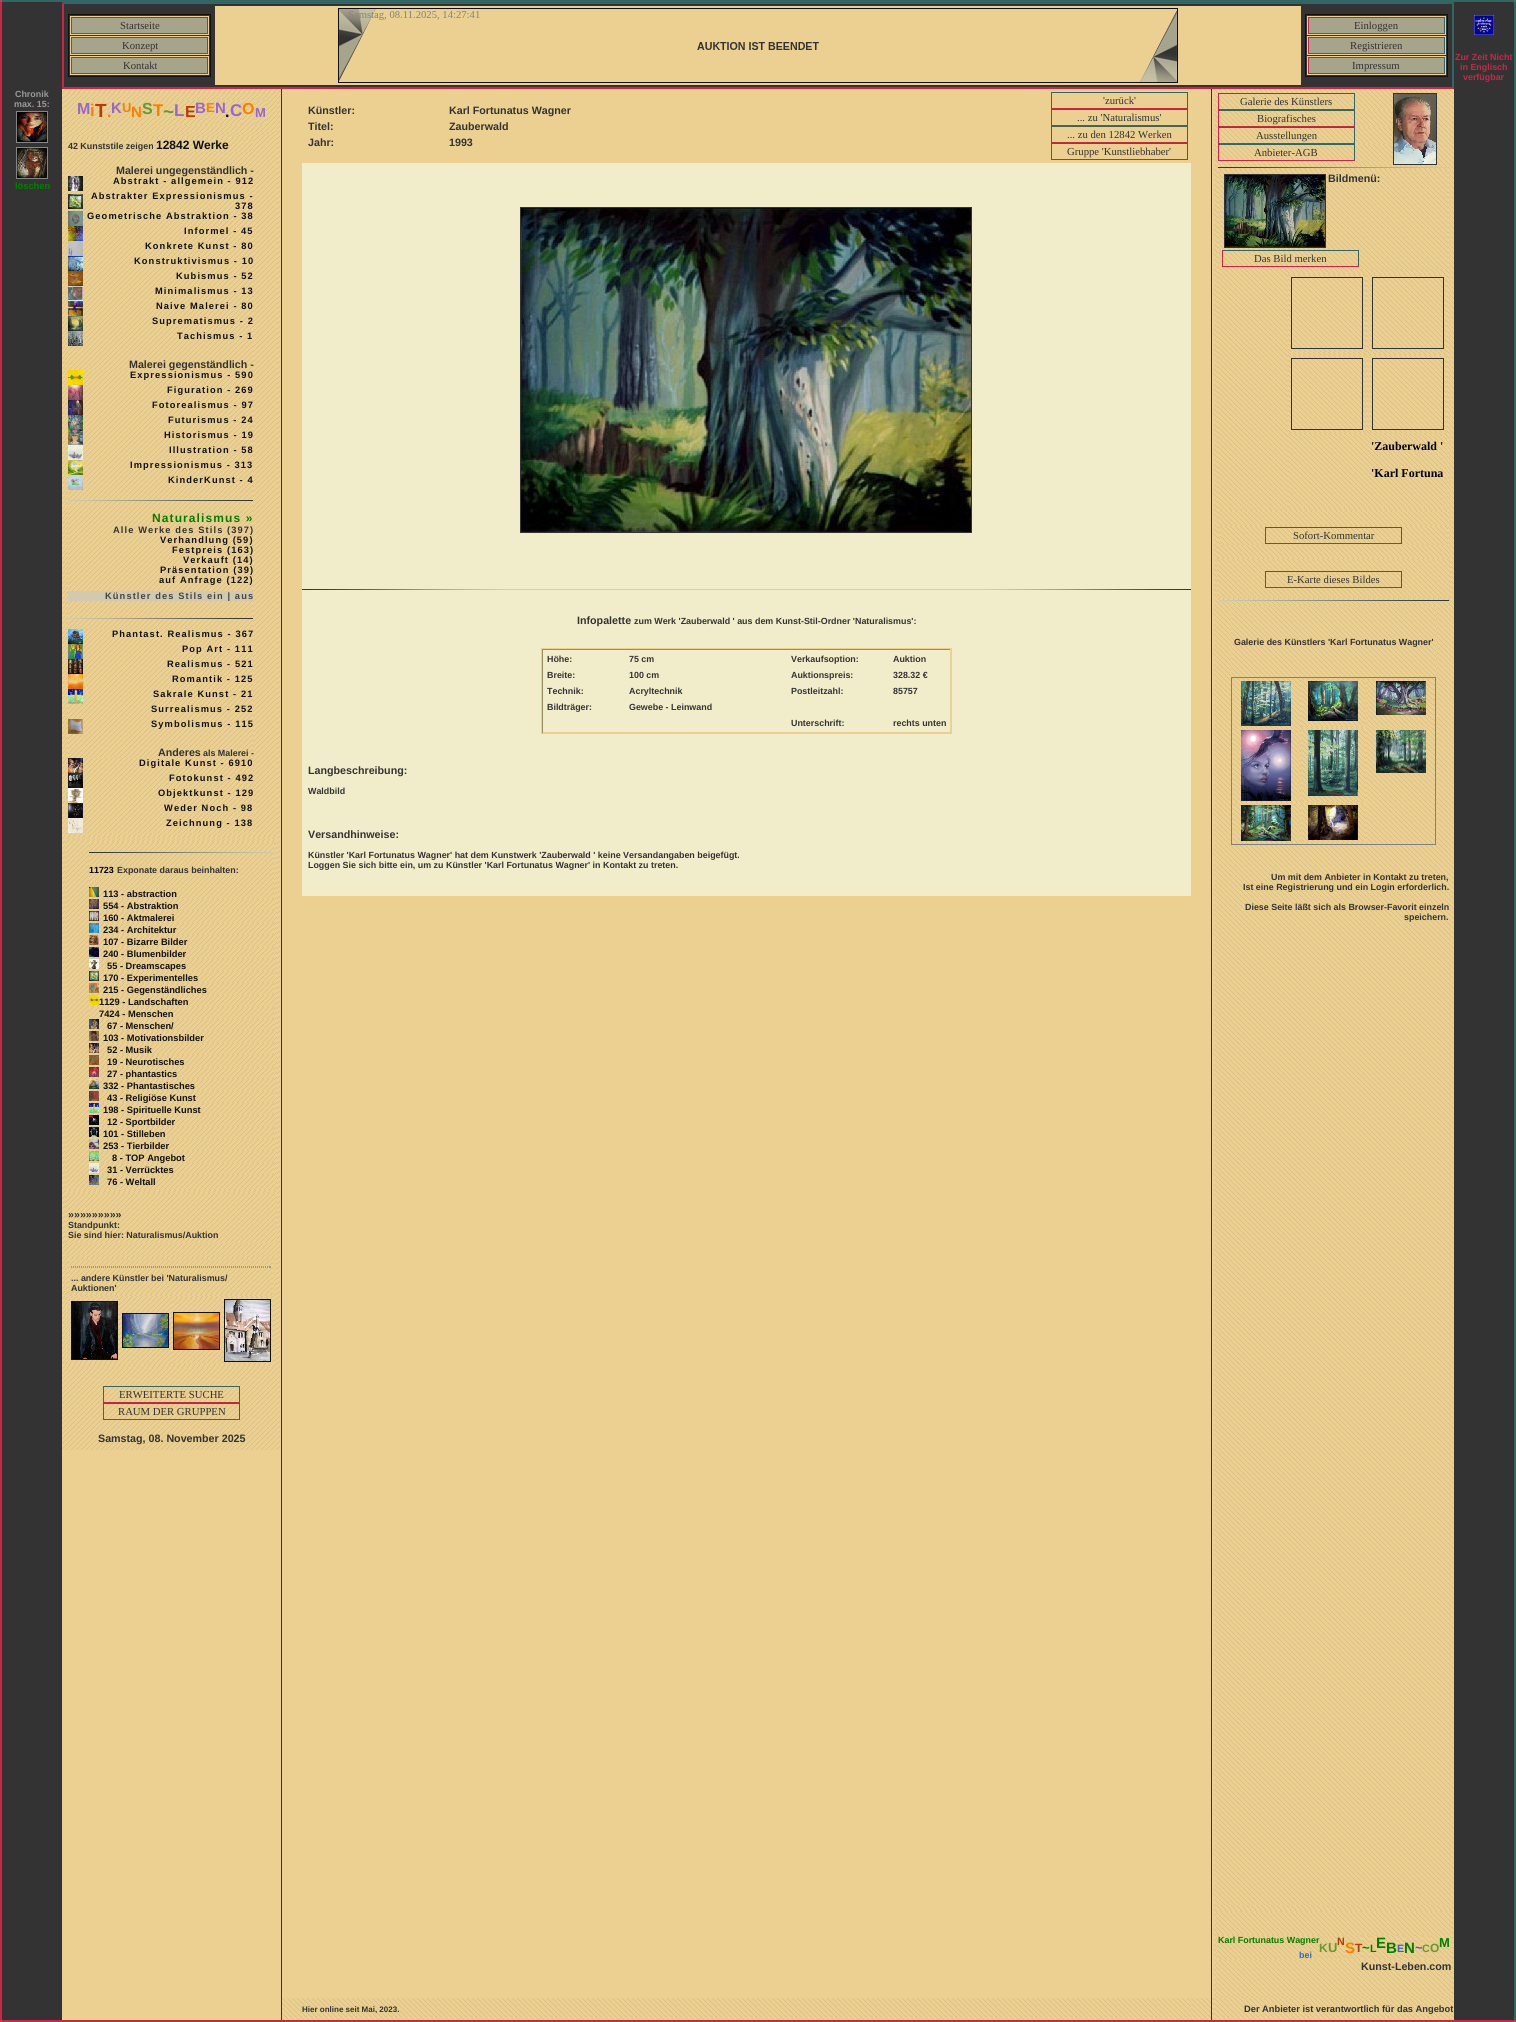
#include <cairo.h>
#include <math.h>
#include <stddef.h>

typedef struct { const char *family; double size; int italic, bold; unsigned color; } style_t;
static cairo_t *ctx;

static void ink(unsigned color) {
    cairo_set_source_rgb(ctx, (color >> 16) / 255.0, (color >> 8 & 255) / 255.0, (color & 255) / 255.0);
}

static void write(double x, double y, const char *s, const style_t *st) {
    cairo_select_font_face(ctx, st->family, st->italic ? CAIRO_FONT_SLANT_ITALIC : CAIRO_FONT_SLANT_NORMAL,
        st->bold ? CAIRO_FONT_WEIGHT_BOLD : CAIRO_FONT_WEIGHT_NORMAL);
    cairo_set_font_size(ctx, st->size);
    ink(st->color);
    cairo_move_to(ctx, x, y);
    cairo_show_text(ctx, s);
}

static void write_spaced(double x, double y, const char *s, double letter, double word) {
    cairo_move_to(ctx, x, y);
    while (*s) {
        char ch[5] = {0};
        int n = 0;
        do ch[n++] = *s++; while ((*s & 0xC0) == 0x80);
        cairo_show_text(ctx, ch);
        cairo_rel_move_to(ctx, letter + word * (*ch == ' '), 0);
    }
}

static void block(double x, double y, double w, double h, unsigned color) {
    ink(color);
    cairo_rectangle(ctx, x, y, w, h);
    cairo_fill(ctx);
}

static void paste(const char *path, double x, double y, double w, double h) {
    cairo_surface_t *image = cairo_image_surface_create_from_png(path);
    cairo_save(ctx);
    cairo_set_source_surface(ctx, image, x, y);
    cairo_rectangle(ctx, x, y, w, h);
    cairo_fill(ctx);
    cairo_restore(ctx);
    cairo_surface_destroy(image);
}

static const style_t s1 = {"Liberation Serif", 10.7, 0, 0, 0x333333};
static const style_t s2 = {"Liberation Sans", 8.9, 0, 1, 0xc92748};
static const style_t s3 = {"Liberation Sans", 8.9, 0, 1, 0x999999};
static const style_t s4 = {"Liberation Sans", 9.3, 0, 1, 0x008000};
static const style_t s5 = {"Liberation Sans", 16, 0, 1, 0x9966cc};
static const style_t s6 = {"Liberation Sans", 17, 0, 1, 0xff8000};
static const style_t s7 = {"Liberation Sans", 19, 0, 1, 0xb83c00};
static const style_t s8 = {"Liberation Sans", 15, 0, 1, 0x9966cc};
static const style_t s9 = {"Liberation Sans", 13, 0, 1, 0xff8000};
static const style_t s10 = {"Liberation Sans", 15, 0, 1, 0xff8000};
static const style_t s11 = {"Liberation Sans", 16, 0, 1, 0x669933};
static const style_t s12 = {"Liberation Sans", 19, 0, 1, 0x669933};
static const style_t s13 = {"Liberation Sans", 17, 0, 1, 0x9966cc};
static const style_t s14 = {"Liberation Sans", 16, 0, 1, 0xb83c00};
static const style_t s15 = {"Liberation Sans", 16, 0, 1, 0xff8000};
static const style_t s16 = {"Liberation Sans", 13, 0, 1, 0x9966cc};
static const style_t s17 = {"Liberation Sans", 16, 0, 1, 0x000000};
static const style_t s18 = {"Liberation Sans", 8.9, 0, 1, 0x333333};
static const style_t s19 = {"Liberation Sans", 12, 0, 1, 0x111111};
static const style_t s20 = {"Liberation Sans", 10.7, 0, 1, 0x333333};
static const style_t s21 = {"Liberation Sans", 8.9, 0, 1, 0x000000};
static const style_t s22 = {"Liberation Sans", 9.3, 0, 1, 0x111111};
static const style_t s23 = {"Liberation Serif", 12, 0, 1, 0x000000};
static const style_t s24 = {"Liberation Sans", 8.9, 0, 1, 0x008000};
static const style_t s25 = {"Liberation Sans", 8.9, 0, 1, 0x3366cc};
static const style_t s26 = {"Liberation Sans", 12, 0, 1, 0x669933};
static const style_t s27 = {"Liberation Sans", 13, 0, 1, 0x669933};
static const style_t s28 = {"Liberation Sans", 10.7, 0, 1, 0xb83c00};
static const style_t s29 = {"Liberation Sans", 12, 0, 1, 0xb83c00};
static const style_t s30 = {"Liberation Sans", 13, 0, 1, 0x008000};
static const style_t s31 = {"Liberation Sans", 10.7, 0, 1, 0x008000};
static const style_t s32 = {"Liberation Sans", 15, 0, 1, 0x008000};
static const style_t s33 = {"Liberation Sans", 10.7, 0, 1, 0x3366cc};
static const style_t s34 = {"Liberation Sans", 13, 0, 1, 0x3366cc};
static const style_t s35 = {"Liberation Sans", 10.7, 0, 1, 0x669933};
static const style_t s36 = {"Liberation Sans", 8, 0, 1, 0x333333};
static const style_t s37 = {"Liberation Sans", 9.3, 0, 1, 0x333333};

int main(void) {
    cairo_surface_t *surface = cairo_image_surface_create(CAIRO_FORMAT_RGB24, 1516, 2022);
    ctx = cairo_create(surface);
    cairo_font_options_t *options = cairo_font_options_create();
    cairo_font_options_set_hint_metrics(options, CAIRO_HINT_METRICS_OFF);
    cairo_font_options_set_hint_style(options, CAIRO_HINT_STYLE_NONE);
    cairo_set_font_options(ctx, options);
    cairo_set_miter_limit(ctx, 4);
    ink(0xebd092);
    cairo_paint(ctx);
    ink(0x336663);
    cairo_new_path(ctx);
    cairo_move_to(ctx, 0, 0);
    cairo_line_to(ctx, 1516, 0);
    cairo_line_to(ctx, 1514, 2);
    cairo_line_to(ctx, 2, 2);
    cairo_close_path(ctx);
    cairo_fill(ctx);
    cairo_new_path(ctx);
    cairo_move_to(ctx, 1516, 0);
    cairo_line_to(ctx, 1516, 2022);
    cairo_line_to(ctx, 1514, 2020);
    cairo_line_to(ctx, 1514, 2);
    cairo_close_path(ctx);
    cairo_fill(ctx);
    ink(0xc92748);
    cairo_new_path(ctx);
    cairo_move_to(ctx, 1516, 2022);
    cairo_line_to(ctx, 0, 2022);
    cairo_line_to(ctx, 2, 2020);
    cairo_line_to(ctx, 1514, 2020);
    cairo_close_path(ctx);
    cairo_fill(ctx);
    cairo_new_path(ctx);
    cairo_move_to(ctx, 0, 2022);
    cairo_line_to(ctx, 0, 0);
    cairo_line_to(ctx, 2, 2);
    cairo_line_to(ctx, 2, 2020);
    cairo_close_path(ctx);
    cairo_fill(ctx);
    block(2, 2, 1512, 87, 0x333333);
    ink(0x336663);
    cairo_new_path(ctx);
    cairo_move_to(ctx, 62, 2);
    cairo_line_to(ctx, 1454, 2);
    cairo_line_to(ctx, 1452, 4);
    cairo_line_to(ctx, 64, 4);
    cairo_close_path(ctx);
    cairo_fill(ctx);
    cairo_new_path(ctx);
    cairo_move_to(ctx, 1454, 2);
    cairo_line_to(ctx, 1454, 89);
    cairo_line_to(ctx, 1452, 87);
    cairo_line_to(ctx, 1452, 4);
    cairo_close_path(ctx);
    cairo_fill(ctx);
    ink(0xc92748);
    cairo_new_path(ctx);
    cairo_move_to(ctx, 1454, 89);
    cairo_line_to(ctx, 62, 89);
    cairo_line_to(ctx, 64, 87);
    cairo_line_to(ctx, 1452, 87);
    cairo_close_path(ctx);
    cairo_fill(ctx);
    cairo_new_path(ctx);
    cairo_move_to(ctx, 62, 89);
    cairo_line_to(ctx, 62, 2);
    cairo_line_to(ctx, 64, 4);
    cairo_line_to(ctx, 64, 87);
    cairo_close_path(ctx);
    cairo_fill(ctx);
    cairo_rectangle(ctx, 68.5, 14.5, 142, 62);
    ink(0x111111);
    cairo_set_line_width(ctx, 1);
    cairo_stroke(ctx);
    block(70, 16, 139, 19, 0xebd092);
    block(72, 18, 135, 15, 0xa7a48c);
    block(71, 17, 137, 1, 0x336663);
    block(207, 17, 1, 17, 0x336663);
    block(71, 33, 137, 1, 0xc92748);
    block(71, 17, 1, 17, 0xc92748);
    write(120, 29, "Startseite", &s1);
    block(70, 36, 139, 19, 0xebd092);
    block(72, 38, 135, 15, 0xa7a48c);
    block(71, 37, 137, 1, 0x336663);
    block(207, 37, 1, 17, 0x336663);
    block(71, 53, 137, 1, 0xc92748);
    block(71, 37, 1, 17, 0xc92748);
    write(122, 49, "Konzept", &s1);
    block(70, 56, 139, 19, 0xebd092);
    block(72, 58, 135, 15, 0xa7a48c);
    block(71, 57, 137, 1, 0x336663);
    block(207, 57, 1, 17, 0x336663);
    block(71, 73, 137, 1, 0xc92748);
    block(71, 57, 1, 17, 0xc92748);
    write(123, 69, "Kontakt", &s1);
    block(215, 6, 1086, 79, 0xebd092);
    paste("pic1.png", 338, 8, 840, 75);
    cairo_rectangle(ctx, 1305.5, 14.5, 142, 62);
    ink(0x111111);
    cairo_stroke(ctx);
    block(1307, 16, 139, 19, 0xebd092);
    block(1309, 18, 135, 15, 0xa7a48c);
    block(1308, 17, 137, 1, 0x336663);
    block(1444, 17, 1, 17, 0x336663);
    block(1308, 33, 137, 1, 0xc92748);
    block(1308, 17, 1, 17, 0xc92748);
    write(1354, 29, "Einloggen", &s1);
    block(1307, 36, 139, 19, 0xebd092);
    block(1309, 38, 135, 15, 0xa7a48c);
    block(1308, 37, 137, 1, 0x336663);
    block(1444, 37, 1, 17, 0x336663);
    block(1308, 53, 137, 1, 0xc92748);
    block(1308, 37, 1, 17, 0xc92748);
    write(1350, 49, "Registrieren", &s1);
    block(1307, 56, 139, 19, 0xebd092);
    block(1309, 58, 135, 15, 0xa7a48c);
    block(1308, 57, 137, 1, 0x336663);
    block(1444, 57, 1, 17, 0x336663);
    block(1308, 73, 137, 1, 0xc92748);
    block(1308, 57, 1, 17, 0xc92748);
    write(1352, 69, "Impressum", &s1);
    paste("pic2.png", 1474, 15, 20, 20);
    write(1455, 60, "Zur Zeit Nicht", &s2);
    write(1460, 70, "in Englisch", &s2);
    write(1463, 80, "verfügbar", &s2);
    block(2, 89, 60, 1931, 0x333333);
    write(15, 97, "Chronik", &s3);
    write(14, 107, "max. 15:", &s3);
    cairo_rectangle(ctx, 16.5, 111.5, 31, 31);
    ink(0x858585);
    cairo_stroke(ctx);
    paste("pic3.png", 17, 112, 30, 30);
    cairo_rectangle(ctx, 16.5, 147.5, 31, 31);
    cairo_stroke(ctx);
    paste("pic4.png", 17, 148, 30, 30);
    write(15, 189, "löschen", &s4);
    paste("pic5.png", 62, 89, 218, 1361);
    paste("pic6.png", 65, 92, 212, 40);
    paste("pic7.png", 77, 100, 13, 25);
    write(77, 114, "M", &s5);
    paste("pic8.png", 90, 100, 5, 25);
    write(90, 116, "i", &s6);
    paste("pic9.png", 95, 100, 12, 25);
    write(95, 117, "T", &s7);
    paste("pic10.png", 111, 100, 11, 25);
    write(111, 113, "K", &s8);
    paste("pic11.png", 122, 100, 9, 25);
    write(122, 112, "U", &s9);
    paste("pic10.png", 131, 100, 11, 25);
    write(131, 117, "N", &s10);
    paste("pic10.png", 142, 100, 11, 25);
    write(142, 114, "S", &s11);
    paste("pic12.png", 153, 100, 10, 25);
    write(153, 116, "T", &s6);
    paste("pic10.png", 163, 100, 11, 25);
    write(163, 118, "~", &s12);
    paste("pic10.png", 174, 100, 11, 25);
    write(174, 116, "L", &s13);
    paste("pic12.png", 185, 100, 10, 25);
    write(185, 117, "E", &s14);
    paste("pic10.png", 195, 100, 11, 25);
    write(195, 113, "B", &s8);
    paste("pic11.png", 206, 100, 9, 25);
    write(206, 112, "E", &s9);
    paste("pic12.png", 215, 100, 10, 25);
    write(215, 113, "N", &s8);
    paste("pic9.png", 230, 100, 12, 25);
    write(230, 116, "C", &s13);
    paste("pic7.png", 242, 100, 13, 25);
    write(242, 114, "O", &s15);
    paste("pic10.png", 255, 100, 11, 25);
    write(255, 117, "M", &s16);
    paste("pic13.png", 107, 101, 4, 24);
    write(107, 117, ".", &s15);
    paste("pic8.png", 225, 100, 5, 25);
    write(225, 117, ".", &s17);
    paste("pic14.png", 65, 135, 212, 701);
    paste("pic15.png", 68, 138, 185, 14);
    write(68, 149, "42 Kunststile zeigen", &s18);
    write(156, 149, "12842 Werke", &s19);
    paste("pic16.png", 68, 152, 185, 24);
    paste("pic18.png", 83, 176, 170, 15);
    write(116, 174, "Malerei ungegenständlich -", &s20);
    paste("pic17.png", 68, 176, 15, 15);
    cairo_set_font_size(ctx, 9.3);
    ink(0x111111);
    write_spaced(113, 184, "Abstrakt - allgemein - 912", 1.1, 0);
    paste("pic19.png", 68, 191, 15, 20);
    paste("pic20.png", 68, 194, 15, 15);
    paste("pic21.png", 83, 191, 170, 20);
    write_spaced(91, 199, "Abstrakter Expressionismus -", 1.1, 0);
    write_spaced(235, 209, "378", 1.1, 0);
    paste("pic22.png", 68, 211, 15, 15);
    paste("pic18.png", 83, 211, 170, 15);
    write_spaced(87, 219, "Geometrische Abstraktion - 38", 1.1, 0);
    paste("pic23.png", 68, 226, 15, 15);
    paste("pic18.png", 83, 226, 170, 15);
    write_spaced(184, 234, "Informel - 45", 1.1, 0);
    paste("pic24.png", 68, 241, 15, 15);
    paste("pic18.png", 83, 241, 170, 15);
    write_spaced(145, 249, "Konkrete Kunst - 80", 1.1, 0);
    paste("pic25.png", 68, 256, 15, 15);
    paste("pic18.png", 83, 256, 170, 15);
    write_spaced(134, 264, "Konstruktivismus - 10", 1.1, 0);
    paste("pic26.png", 68, 271, 15, 15);
    paste("pic18.png", 83, 271, 170, 15);
    write_spaced(176, 279, "Kubismus - 52", 1.1, 0);
    paste("pic27.png", 68, 286, 15, 15);
    paste("pic18.png", 83, 286, 170, 15);
    write_spaced(155, 294, "Minimalismus - 13", 1.1, 0);
    paste("pic28.png", 68, 301, 15, 15);
    paste("pic18.png", 83, 301, 170, 15);
    write_spaced(156, 309, "Naive Malerei - 80", 1.1, 0);
    paste("pic29.png", 68, 316, 15, 15);
    paste("pic18.png", 83, 316, 170, 15);
    write_spaced(152, 324, "Suprematismus - 2", 1.1, 0);
    paste("pic30.png", 68, 331, 15, 15);
    paste("pic18.png", 83, 331, 170, 15);
    write_spaced(177, 339, "Tachismus - 1", 1.1, 0);
    paste("pic16.png", 68, 346, 185, 24);
    paste("pic18.png", 83, 370, 170, 15);
    write(129, 368, "Malerei gegenständlich -", &s20);
    paste("pic31.png", 68, 370, 15, 15);
    cairo_set_font_size(ctx, 9.3);
    ink(0x111111);
    write_spaced(130, 378, "Expressionismus - 590", 1.1, 0);
    paste("pic32.png", 68, 385, 15, 15);
    paste("pic18.png", 83, 385, 170, 15);
    write_spaced(167, 393, "Figuration - 269", 1.1, 0);
    paste("pic33.png", 68, 400, 15, 15);
    paste("pic18.png", 83, 400, 170, 15);
    write_spaced(152, 408, "Fotorealismus - 97", 1.1, 0);
    paste("pic34.png", 68, 415, 15, 15);
    paste("pic18.png", 83, 415, 170, 15);
    write_spaced(168, 423, "Futurismus - 24", 1.1, 0);
    paste("pic35.png", 68, 430, 15, 15);
    paste("pic18.png", 83, 430, 170, 15);
    write_spaced(164, 438, "Historismus - 19", 1.1, 0);
    paste("pic36.png", 68, 445, 15, 15);
    paste("pic18.png", 83, 445, 170, 15);
    write_spaced(169, 453, "Illustration - 58", 1.1, 0);
    paste("pic37.png", 68, 460, 15, 15);
    paste("pic18.png", 83, 460, 170, 15);
    write_spaced(130, 468, "Impressionismus - 313", 1.1, 0);
    paste("pic38.png", 68, 475, 15, 15);
    paste("pic18.png", 83, 475, 170, 15);
    write_spaced(168, 483, "KinderKunst - 4", 1.1, 0);
    paste("pic39.png", 68, 490, 185, 139);
    paste("pic40.png", 68, 500, 185, 1);
    cairo_set_font_size(ctx, 12);
    ink(0x008000);
    write_spaced(152, 522, "Naturalismus »", 1.1, 0);
    cairo_set_font_size(ctx, 9.3);
    ink(0x333333);
    write_spaced(113, 533, "Alle Werke des Stils (397)", 1.1, 0);
    ink(0x111111);
    write_spaced(160, 543, "Verhandlung (59)", 1.1, 0);
    write_spaced(172, 553, "Festpreis (163)", 1.1, 0);
    write_spaced(183, 563, "Verkauft (14)", 1.1, 0);
    write_spaced(160, 573, "Präsentation (39)", 1.1, 0);
    write_spaced(159, 583, "auf Anfrage (122)", 1.1, 0);
    block(68, 591, 185, 10, 0xd1cab0);
    ink(0x444444);
    write_spaced(105, 599, "Künstler des Stils ein | aus", 1.1, 0);
    paste("pic40.png", 68, 618, 185, 1);
    paste("pic41.png", 68, 629, 15, 15);
    paste("pic18.png", 83, 629, 170, 15);
    ink(0x111111);
    write_spaced(112, 637, "Phantast. Realismus - 367", 1.1, 0);
    paste("pic42.png", 68, 644, 15, 15);
    paste("pic18.png", 83, 644, 170, 15);
    write_spaced(182, 652, "Pop Art - 111", 1.1, 0);
    paste("pic43.png", 68, 659, 15, 15);
    paste("pic18.png", 83, 659, 170, 15);
    write_spaced(167, 667, "Realismus - 521", 1.1, 0);
    paste("pic44.png", 68, 674, 15, 15);
    paste("pic18.png", 83, 674, 170, 15);
    write_spaced(172, 682, "Romantik - 125", 1.1, 0);
    paste("pic45.png", 68, 689, 15, 15);
    paste("pic18.png", 83, 689, 170, 15);
    write_spaced(153, 697, "Sakrale Kunst - 21", 1.1, 0);
    paste("pic46.png", 68, 704, 15, 15);
    paste("pic18.png", 83, 704, 170, 15);
    write_spaced(151, 712, "Surrealismus - 252", 1.1, 0);
    paste("pic47.png", 68, 719, 15, 15);
    paste("pic18.png", 83, 719, 170, 15);
    write_spaced(151, 727, "Symbolismus - 115", 1.1, 0);
    paste("pic16.png", 68, 734, 185, 24);
    write(158, 756, "Anderes", &s20);
    write(203, 756, "als Malerei -", &s18);
    paste("pic48.png", 68, 758, 15, 15);
    paste("pic18.png", 83, 758, 170, 15);
    cairo_set_font_size(ctx, 9.3);
    ink(0x111111);
    write_spaced(139, 766, "Digitale Kunst - 6910", 1.1, 0);
    paste("pic49.png", 68, 773, 15, 15);
    paste("pic18.png", 83, 773, 170, 15);
    write_spaced(169, 781, "Fotokunst - 492", 1.1, 0);
    paste("pic50.png", 68, 788, 15, 15);
    paste("pic18.png", 83, 788, 170, 15);
    write_spaced(158, 796, "Objektkunst - 129", 1.1, 0);
    paste("pic51.png", 68, 803, 15, 15);
    paste("pic18.png", 83, 803, 170, 15);
    write_spaced(164, 811, "Weder Noch - 98", 1.1, 0);
    paste("pic52.png", 68, 818, 15, 15);
    paste("pic18.png", 83, 818, 170, 15);
    write_spaced(166, 826, "Zeichnung - 138", 1.1, 0);
    paste("pic53.png", 65, 839, 212, 351);
    paste("pic54.png", 89, 842, 185, 45);
    paste("pic55.png", 89, 852, 185, 1);
    write(89, 873, "11723", &s21);
    write(117, 873, "Exponate daraus beinhalten:", &s18);
    paste("pic56.png", 89, 887, 185, 12);
    paste("pic57.png", 89, 887, 10, 10);
    write(103, 897, "113 - abstraction", &s22);
    paste("pic56.png", 89, 899, 185, 12);
    paste("pic58.png", 89, 899, 10, 10);
    write(103, 909, "554 - Abstraktion", &s22);
    paste("pic56.png", 89, 911, 185, 12);
    paste("pic59.png", 89, 911, 10, 10);
    write(103, 921, "160 - Aktmalerei", &s22);
    paste("pic56.png", 89, 923, 185, 12);
    paste("pic60.png", 89, 923, 10, 10);
    write(103, 933, "234 - Architektur", &s22);
    paste("pic56.png", 89, 935, 185, 12);
    paste("pic61.png", 89, 935, 10, 10);
    write(103, 945, "107 - Bizarre Bilder", &s22);
    paste("pic56.png", 89, 947, 185, 12);
    paste("pic62.png", 89, 947, 10, 10);
    write(103, 957, "240 - Blumenbilder", &s22);
    paste("pic56.png", 89, 959, 185, 12);
    paste("pic63.png", 89, 959, 10, 10);
    write(107, 969, "55 - Dreamscapes", &s22);
    paste("pic56.png", 89, 971, 185, 12);
    paste("pic64.png", 89, 971, 10, 10);
    write(103, 981, "170 - Experimentelles", &s22);
    paste("pic56.png", 89, 983, 185, 12);
    paste("pic65.png", 89, 983, 10, 10);
    write(103, 993, "215 - Gegenständliches", &s22);
    paste("pic56.png", 89, 995, 185, 12);
    paste("pic66.png", 89, 995, 10, 10);
    write(99, 1005, "1129 - Landschaften", &s22);
    paste("pic56.png", 89, 1007, 185, 12);
    write(99, 1017, "7424 - Menschen", &s22);
    paste("pic56.png", 89, 1019, 185, 12);
    paste("pic67.png", 89, 1019, 10, 10);
    write(107, 1029, "67 - Menschen/", &s22);
    paste("pic56.png", 89, 1031, 185, 12);
    paste("pic68.png", 89, 1031, 10, 10);
    write(103, 1041, "103 - Motivationsbilder", &s22);
    paste("pic56.png", 89, 1043, 185, 12);
    paste("pic69.png", 89, 1043, 10, 10);
    write(107, 1053, "52 - Musik", &s22);
    paste("pic56.png", 89, 1055, 185, 12);
    paste("pic70.png", 89, 1055, 10, 10);
    write(107, 1065, "19 - Neurotisches", &s22);
    paste("pic56.png", 89, 1067, 185, 12);
    paste("pic71.png", 89, 1067, 10, 10);
    write(107, 1077, "27 - phantastics", &s22);
    paste("pic56.png", 89, 1079, 185, 12);
    paste("pic72.png", 89, 1079, 10, 10);
    write(103, 1089, "332 - Phantastisches", &s22);
    paste("pic56.png", 89, 1091, 185, 12);
    paste("pic73.png", 89, 1091, 10, 10);
    write(107, 1101, "43 - Religiöse Kunst", &s22);
    paste("pic56.png", 89, 1103, 185, 12);
    paste("pic74.png", 89, 1103, 10, 10);
    write(103, 1113, "198 - Spirituelle Kunst", &s22);
    paste("pic56.png", 89, 1115, 185, 12);
    paste("pic75.png", 89, 1115, 10, 10);
    write(107, 1125, "12 - Sportbilder", &s22);
    paste("pic56.png", 89, 1127, 185, 12);
    paste("pic76.png", 89, 1127, 10, 10);
    write(103, 1137, "101 - Stilleben", &s22);
    paste("pic56.png", 89, 1139, 185, 12);
    paste("pic77.png", 89, 1139, 10, 10);
    write(103, 1149, "253 - Tierbilder", &s22);
    paste("pic56.png", 89, 1151, 185, 12);
    paste("pic78.png", 89, 1151, 10, 10);
    write(112, 1161, "8 - TOP Angebot", &s22);
    paste("pic56.png", 89, 1163, 185, 12);
    paste("pic79.png", 89, 1163, 10, 10);
    write(107, 1173, "31 - Verrücktes", &s22);
    paste("pic56.png", 89, 1175, 185, 12);
    paste("pic80.png", 89, 1175, 10, 10);
    write(107, 1185, "76 - Weltall", &s22);
    paste("pic81.png", 65, 1193, 212, 50);
    write(68, 1218, "»»»»»»»»»", &s20);
    write(68, 1228, "Standpunkt:", &s18);
    write(68, 1238, "Sie sind hier: Naturalismus/Auktion", &s18);
    paste("pic82.png", 65, 1246, 212, 6);
    paste("pic83.png", 65, 1255, 212, 113);
    paste("pic84.png", 68, 1258, 206, 38);
    paste("pic85.png", 70, 1260, 202, 34);
    cairo_new_path(ctx);
    cairo_move_to(ctx, 71, 1266.5);
    cairo_line_to(ctx, 271, 1266.5);
    ink(0x999999);
    cairo_set_dash(ctx, (double[]){1, 1}, 2, 0);
    cairo_stroke(ctx);
    block(270, 1266, 1, 2, 0x999999);
    cairo_new_path(ctx);
    cairo_move_to(ctx, 71, 1267.5);
    cairo_line_to(ctx, 271, 1267.5);
    cairo_stroke(ctx);
    write(71, 1281, "... andere Künstler bei 'Naturalismus/", &s18);
    write(71, 1291, "Auktionen'", &s18);
    paste("pic86.png", 68, 1296, 206, 69);
    paste("pic87.png", 70, 1298, 49, 65);
    cairo_rectangle(ctx, 71.5, 1301.5, 46, 58);
    ink(0x111111);
    cairo_set_dash(ctx, NULL, 0, 0);
    cairo_stroke(ctx);
    paste("pic88.png", 72, 1302, 45, 57);
    paste("pic87.png", 121, 1298, 49, 65);
    cairo_rectangle(ctx, 122.5, 1313.5, 46, 34);
    cairo_stroke(ctx);
    paste("pic89.png", 123, 1314, 45, 33);
    paste("pic87.png", 172, 1298, 49, 65);
    cairo_rectangle(ctx, 173.5, 1312.5, 46, 37);
    cairo_stroke(ctx);
    paste("pic90.png", 174, 1313, 45, 36);
    paste("pic87.png", 223, 1298, 49, 65);
    cairo_rectangle(ctx, 224.5, 1299.5, 46, 62);
    cairo_stroke(ctx);
    paste("pic91.png", 225, 1300, 45, 61);
    paste("pic92.png", 65, 1371, 212, 76);
    paste("pic93.png", 104, 1387, 135, 15);
    block(103, 1386, 137, 1, 0x336663);
    block(239, 1386, 1, 17, 0x336663);
    block(103, 1402, 137, 1, 0xc92748);
    block(103, 1386, 1, 17, 0xc92748);
    write(119, 1398, "ERWEITERTE SUCHE", &s1);
    paste("pic93.png", 104, 1404, 135, 15);
    block(103, 1403, 137, 1, 0x336663);
    block(239, 1403, 1, 17, 0x336663);
    block(103, 1419, 137, 1, 0xc92748);
    block(103, 1403, 1, 17, 0xc92748);
    write(118, 1415, "RAUM DER GRUPPEN", &s1);
    write(98, 1442, "Samstag, 08. November 2025", &s20);
    block(281, 89, 1, 1931, 0x333333);
    write(308, 114, "Künstler:", &s20);
    write(449, 114, "Karl Fortunatus Wagner", &s20);
    write(308, 130, "Titel:", &s20);
    write(449, 130, "Zauberwald", &s20);
    write(308, 146, "Jahr:", &s20);
    write(449, 146, "1993", &s20);
    block(1051, 92, 137, 1, 0x336663);
    block(1187, 92, 1, 17, 0x336663);
    block(1051, 108, 137, 1, 0xc92748);
    block(1051, 92, 1, 17, 0xc92748);
    write(1103, 104, "'zurück'", &s1);
    block(1051, 109, 137, 1, 0x336663);
    block(1187, 109, 1, 17, 0x336663);
    block(1051, 125, 137, 1, 0xc92748);
    block(1051, 109, 1, 17, 0xc92748);
    write(1077, 121, "... zu 'Naturalismus'", &s1);
    block(1051, 126, 137, 1, 0x336663);
    block(1187, 126, 1, 17, 0x336663);
    block(1051, 142, 137, 1, 0xc92748);
    block(1051, 126, 1, 17, 0xc92748);
    write(1067, 138, "... zu den 12842 Werken", &s1);
    block(1051, 143, 137, 1, 0x336663);
    block(1187, 143, 1, 17, 0x336663);
    block(1051, 159, 137, 1, 0xc92748);
    block(1051, 143, 1, 17, 0xc92748);
    write(1067, 155, "Gruppe 'Kunstliebhaber'", &s1);
    block(302, 163, 889, 733, 0xf1edcb);
    cairo_rectangle(ctx, 520.5, 207.5, 451, 325);
    ink(0x333333);
    cairo_stroke(ctx);
    paste("pic94.png", 521, 208, 450, 324);
    block(502, 589, 489, 1, 0xcccccc);
    paste("pic95.png", 302, 589, 200, 1);
    paste("pic96.png", 991, 589, 200, 1);
    write(577, 624, "Infopalette", &s20);
    write(634, 624, "zum Werk 'Zauberwald ' aus dem Kunst-Stil-Ordner 'Naturalismus':", &s18);
    cairo_rectangle(ctx, 541.5, 648.5, 410, 85);
    ink(0xebd092);
    cairo_stroke(ctx);
    block(542, 649, 409, 1, 0x9d8b61);
    block(950, 649, 1, 84, 0xebd092);
    block(542, 732, 409, 1, 0xebd092);
    block(542, 649, 1, 84, 0x9d8b61);
    write(547, 662, "Höhe:", &s18);
    write(629, 662, "75 cm", &s18);
    write(791, 662, "Verkaufsoption:", &s18);
    write(893, 662, "Auktion", &s18);
    write(547, 678, "Breite:", &s18);
    write(629, 678, "100 cm", &s18);
    write(791, 678, "Auktionspreis:", &s18);
    write(893, 678, "328.32 €", &s18);
    write(547, 694, "Technik:", &s18);
    write(629, 694, "Acryltechnik", &s18);
    write(791, 694, "Postleitzahl:", &s18);
    write(893, 694, "85757", &s18);
    write(547, 710, "Bildträger:", &s18);
    write(629, 710, "Gewebe - Leinwand", &s18);
    write(791, 726, "Unterschrift:", &s18);
    write(893, 726, "rechts unten", &s18);
    write(308, 774, "Langbeschreibung:", &s20);
    write(308, 794, "Waldbild", &s18);
    write(308, 838, "Versandhinweise:", &s20);
    write(308, 858, "Künstler 'Karl Fortunatus Wagner' hat dem Kunstwerk 'Zauberwald ' keine Versandangaben beigefügt.", &s18);
    write(308, 868, "Loggen Sie sich bitte ein, um zu Künstler 'Karl Fortunatus Wagner' in Kontakt zu treten.", &s18);
    block(1211, 89, 1, 1931, 0x333333);
    paste("pic97.png", 1214, 89, 240, 1909);
    paste("pic98.png", 1216, 91, 236, 1812);
    paste("pic99.png", 1218, 161, 174, 4);
    paste("pic100.png", 1355, 93, 37, 17);
    paste("pic101.png", 1219, 94, 135, 15);
    block(1218, 93, 137, 1, 0x336663);
    block(1354, 93, 1, 17, 0x336663);
    block(1218, 109, 137, 1, 0xc92748);
    block(1218, 93, 1, 17, 0xc92748);
    write(1240, 105, "Galerie des Künstlers", &s1);
    paste("pic100.png", 1355, 110, 37, 17);
    paste("pic101.png", 1219, 111, 135, 15);
    block(1218, 110, 137, 1, 0x336663);
    block(1354, 110, 1, 17, 0x336663);
    block(1218, 126, 137, 1, 0xc92748);
    block(1218, 110, 1, 17, 0xc92748);
    write(1257, 122, "Biografisches", &s1);
    paste("pic100.png", 1355, 127, 37, 17);
    paste("pic101.png", 1219, 128, 135, 15);
    block(1218, 127, 137, 1, 0x336663);
    block(1354, 127, 1, 17, 0x336663);
    block(1218, 143, 137, 1, 0xc92748);
    block(1218, 127, 1, 17, 0xc92748);
    write(1256, 139, "Ausstellungen", &s1);
    paste("pic100.png", 1355, 144, 37, 17);
    paste("pic101.png", 1219, 145, 135, 15);
    block(1218, 144, 137, 1, 0x336663);
    block(1354, 144, 1, 17, 0x336663);
    block(1218, 160, 137, 1, 0xc92748);
    block(1218, 144, 1, 17, 0xc92748);
    write(1254, 156, "Anbieter-AGB", &s1);
    paste("pic102.png", 1437, 93, 13, 72);
    cairo_rectangle(ctx, 1393.5, 93.5, 43, 71);
    cairo_stroke(ctx);
    paste("pic103.png", 1394, 94, 42, 70);
    paste("pic104.png", 1218, 167, 232, 344);
    paste("pic105.png", 1218, 167, 230, 1);
    paste("pic106.png", 1220, 170, 228, 99);
    cairo_rectangle(ctx, 1224.5, 174.5, 101, 73);
    cairo_stroke(ctx);
    paste("pic107.png", 1225, 175, 100, 72);
    write(1328, 182, "Bildmenü:", &s20);
    paste("pic101.png", 1223, 251, 135, 15);
    block(1222, 250, 137, 1, 0x336663);
    block(1358, 250, 1, 17, 0x336663);
    block(1222, 266, 137, 1, 0xc92748);
    block(1222, 250, 1, 17, 0xc92748);
    write(1254, 262, "Das Bild merken", &s1);
    paste("pic108.png", 1288, 274, 78, 78);
    cairo_rectangle(ctx, 1291.5, 277.5, 71, 71);
    cairo_stroke(ctx);
    paste("pic108.png", 1369, 274, 78, 78);
    cairo_rectangle(ctx, 1372.5, 277.5, 71, 71);
    cairo_stroke(ctx);
    paste("pic108.png", 1288, 355, 78, 78);
    cairo_rectangle(ctx, 1291.5, 358.5, 71, 71);
    cairo_stroke(ctx);
    paste("pic108.png", 1369, 355, 78, 78);
    cairo_rectangle(ctx, 1372.5, 358.5, 71, 71);
    cairo_stroke(ctx);
    paste("pic109.png", 1288, 436, 159, 72);
    write(1371, 450, "'Zauberwald '", &s23);
    write(1371, 477, "'Karl Fortuna", &s23);
    paste("pic110.png", 1218, 512, 232, 46);
    paste("pic111.png", 1220, 526, 228, 19);
    paste("pic101.png", 1266, 528, 135, 15);
    block(1265, 527, 137, 1, 0x336663);
    block(1401, 527, 1, 17, 0x336663);
    block(1265, 543, 137, 1, 0xc92748);
    block(1265, 527, 1, 17, 0xc92748);
    write(1293, 539, "Sofort-Kommentar", &s1);
    paste("pic112.png", 1217, 559, 234, 39);
    paste("pic101.png", 1266, 572, 135, 15);
    block(1265, 571, 137, 1, 0x336663);
    block(1401, 571, 1, 17, 0x336663);
    block(1265, 587, 137, 1, 0xc92748);
    block(1265, 571, 1, 17, 0xc92748);
    write(1287, 583, "E-Karte dieses Bildes", &s1);
    paste("pic113.png", 1218, 599, 232, 3);
    paste("pic114.png", 1219, 600, 230, 1);
    paste("pic115.png", 1218, 603, 232, 320);
    paste("pic116.png", 1230, 606, 207, 240);
    paste("pic117.png", 1231, 607, 205, 70);
    paste("pic118.png", 1233, 609, 201, 66);
    write(1234, 645, "Galerie des Künstlers 'Karl Fortunatus Wagner'", &s18);
    paste("pic119.png", 1232, 678, 203, 166);
    cairo_rectangle(ctx, 1231.5, 677.5, 204, 167);
    ink(0x808080);
    cairo_stroke(ctx);
    paste("pic120.png", 1234, 680, 65, 47);
    paste("pic121.png", 1241, 681, 50, 45);
    paste("pic120.png", 1301, 680, 65, 47);
    paste("pic122.png", 1308, 681, 50, 40);
    paste("pic120.png", 1368, 680, 65, 47);
    paste("pic123.png", 1376, 681, 50, 34);
    paste("pic124.png", 1234, 729, 65, 73);
    paste("pic125.png", 1241, 730, 50, 71);
    paste("pic124.png", 1301, 729, 65, 73);
    paste("pic126.png", 1308, 730, 50, 66);
    paste("pic124.png", 1368, 729, 65, 73);
    paste("pic127.png", 1376, 730, 50, 43);
    paste("pic128.png", 1234, 804, 65, 38);
    paste("pic129.png", 1241, 805, 50, 36);
    paste("pic128.png", 1301, 804, 65, 38);
    paste("pic130.png", 1308, 805, 50, 35);
    paste("pic128.png", 1368, 804, 65, 38);
    write(1271, 880, "Um mit dem Anbieter in Kontakt zu treten,", &s18);
    write(1243, 890, "Ist eine Registrierung und ein Login erforderlich.", &s18);
    write(1245, 910, "Diese Seite läßt sich als Browser-Favorit einzeln", &s18);
    write(1404, 920, "speichern.", &s18);
    paste("pic131.png", 1216, 1905, 236, 5);
    paste("pic132.png", 1216, 1912, 236, 84);
    paste("pic133.png", 1217, 1935, 102, 25);
    paste("pic134.png", 1319, 1935, 9, 25);
    write(1218, 1943, "Karl Fortunatus Wagner", &s24);
    write(1299, 1958, "bei", &s25);
    write(1319, 1952, "K", &s26);
    paste("pic134.png", 1328, 1935, 9, 25);
    write(1328, 1952, "U", &s27);
    paste("pic135.png", 1337, 1935, 8, 25);
    write(1337, 1945, "N", &s28);
    paste("pic136.png", 1345, 1935, 10, 25);
    write(1345, 1953, "S", &s10);
    paste("pic137.png", 1355, 1935, 7, 25);
    paste("pic135.png", 1362, 1935, 8, 25);
    write(1355, 1952, "T", &s29);
    write(1362, 1952, "~", &s30);
    paste("pic138.png", 1370, 1935, 6, 25);
    paste("pic136.png", 1376, 1935, 10, 25);
    write(1370, 1952, "L", &s31);
    write(1376, 1948, "E", &s32);
    paste("pic139.png", 1386, 1935, 11, 25);
    write(1386, 1953, "B", &s32);
    paste("pic137.png", 1397, 1935, 7, 25);
    write(1397, 1952, "E", &s33);
    paste("pic139.png", 1404, 1935, 11, 25);
    write(1404, 1953, "N", &s32);
    paste("pic137.png", 1415, 1935, 7, 25);
    write(1415, 1952, "~", &s34);
    paste("pic135.png", 1422, 1935, 8, 25);
    write(1422, 1952, "C", &s35);
    paste("pic134.png", 1430, 1935, 9, 25);
    write(1430, 1952, "O", &s26);
    paste("pic140.png", 1439, 1935, 12, 25);
    write(1439, 1947, "M", &s30);
    write(1361, 1970, "Kunst-Leben.com", &s20);
    paste("pic141.png", 282, 1998, 20, 22);
    paste("pic142.png", 302, 1998, 889, 22);
    write(302, 2012, "Hier online seit Mai, 2023.", &s36);
    paste("pic141.png", 1191, 1998, 20, 22);
    paste("pic143.png", 1212, 1998, 2, 22);
    paste("pic144.png", 1214, 1998, 240, 22);
    write(1244, 2012, "Der Anbieter ist verantwortlich für das Angebot", &s37);
    block(1454, 89, 60, 1931, 0x333333);
    cairo_surface_write_to_png(surface, "screenshot.png");
    cairo_font_options_destroy(options);
    cairo_destroy(ctx);
    cairo_surface_destroy(surface);
    return 0;
}
